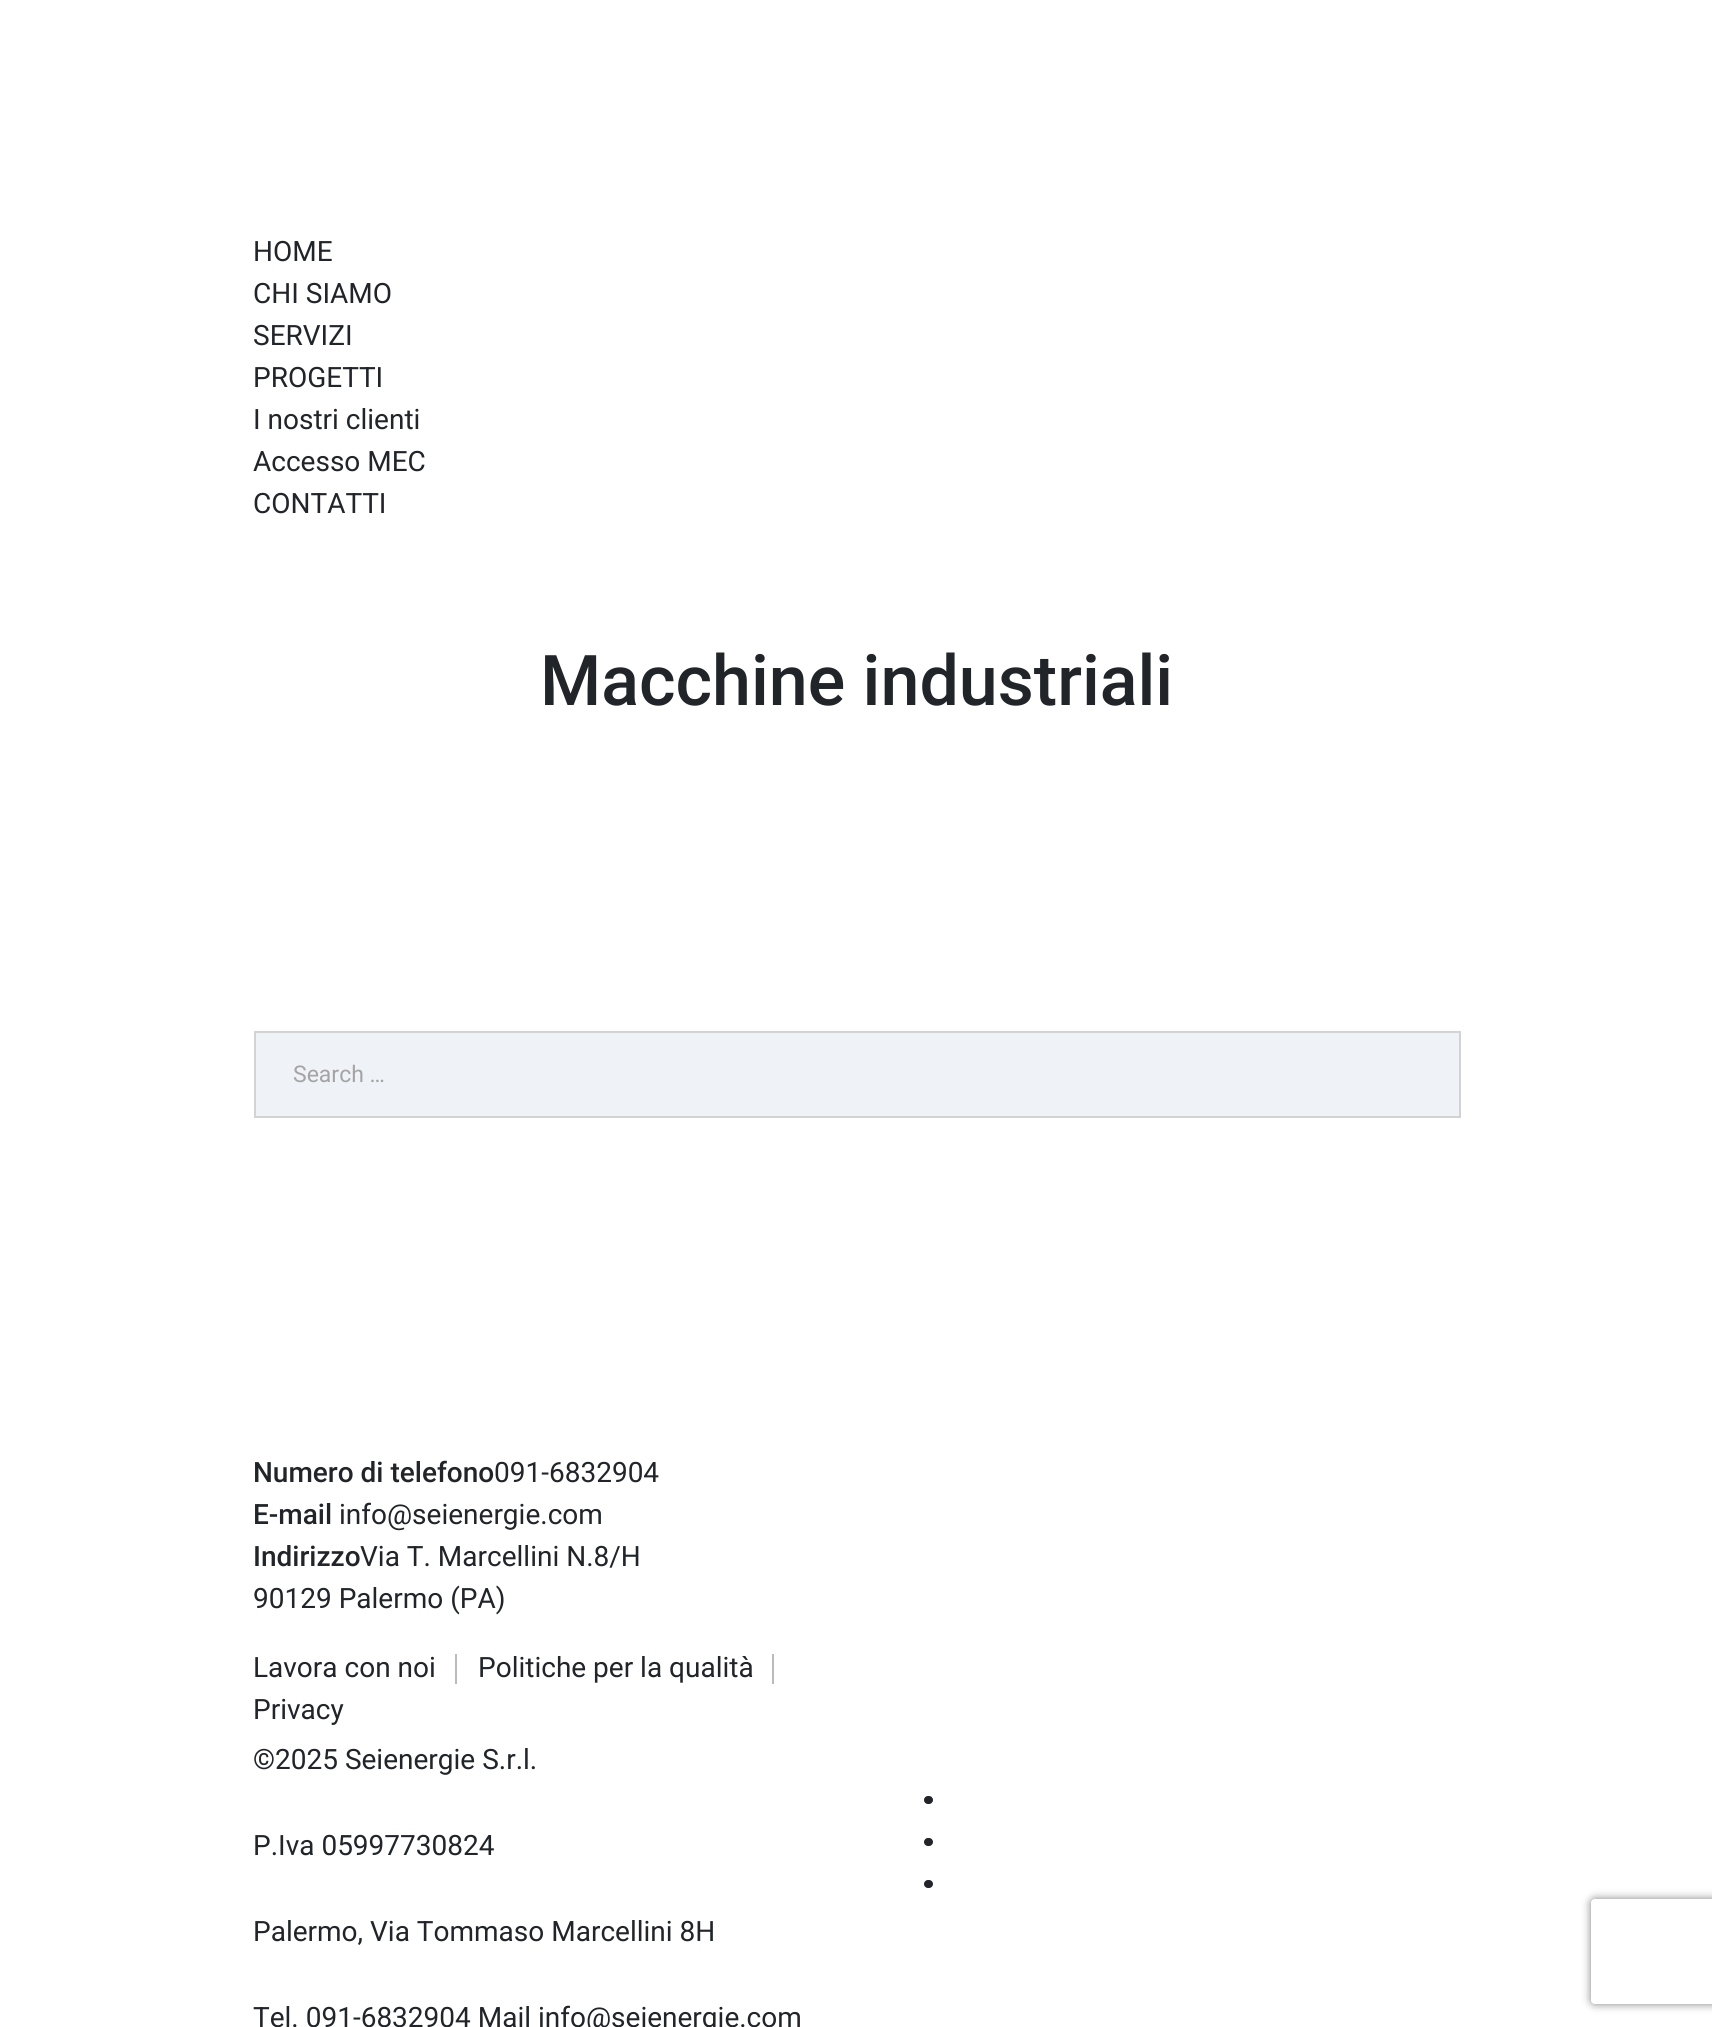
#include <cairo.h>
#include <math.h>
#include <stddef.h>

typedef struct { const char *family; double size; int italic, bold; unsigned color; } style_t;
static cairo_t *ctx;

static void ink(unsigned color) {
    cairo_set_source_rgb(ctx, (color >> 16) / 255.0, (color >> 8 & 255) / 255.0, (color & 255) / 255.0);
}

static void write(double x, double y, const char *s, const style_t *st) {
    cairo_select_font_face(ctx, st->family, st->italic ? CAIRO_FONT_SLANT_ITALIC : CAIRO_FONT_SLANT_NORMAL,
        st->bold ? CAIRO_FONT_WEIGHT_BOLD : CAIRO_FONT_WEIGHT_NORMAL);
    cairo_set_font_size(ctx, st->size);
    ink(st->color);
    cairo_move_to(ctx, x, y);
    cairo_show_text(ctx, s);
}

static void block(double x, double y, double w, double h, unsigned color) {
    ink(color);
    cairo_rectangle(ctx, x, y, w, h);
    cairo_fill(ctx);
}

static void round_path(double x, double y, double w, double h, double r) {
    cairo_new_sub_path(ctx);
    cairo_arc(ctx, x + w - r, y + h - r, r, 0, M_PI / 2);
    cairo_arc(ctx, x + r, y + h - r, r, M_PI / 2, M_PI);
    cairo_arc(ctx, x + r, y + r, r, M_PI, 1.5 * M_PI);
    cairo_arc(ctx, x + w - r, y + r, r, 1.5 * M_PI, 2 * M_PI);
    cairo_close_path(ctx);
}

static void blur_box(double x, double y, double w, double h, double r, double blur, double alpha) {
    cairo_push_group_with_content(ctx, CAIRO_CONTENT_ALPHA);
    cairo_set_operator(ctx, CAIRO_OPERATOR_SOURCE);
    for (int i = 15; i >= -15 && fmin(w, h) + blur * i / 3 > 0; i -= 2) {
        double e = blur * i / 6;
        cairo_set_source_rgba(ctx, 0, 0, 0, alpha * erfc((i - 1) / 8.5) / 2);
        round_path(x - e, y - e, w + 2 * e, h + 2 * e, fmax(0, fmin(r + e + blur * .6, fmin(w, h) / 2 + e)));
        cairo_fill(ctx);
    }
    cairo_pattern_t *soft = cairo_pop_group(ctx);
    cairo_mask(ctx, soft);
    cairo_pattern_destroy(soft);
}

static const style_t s1 = {"Roboto", 28, 0, 0, 0x212529};
static const style_t s2 = {"Roboto Medium", 70, 0, 0, 0x212529};
static const style_t s3 = {"Roboto", 23, 0, 0, 0xa4a4a4};
static const style_t s4 = {"Roboto Medium", 28, 0, 0, 0x212529};

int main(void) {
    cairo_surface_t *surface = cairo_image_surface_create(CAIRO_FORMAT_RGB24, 1712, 2027);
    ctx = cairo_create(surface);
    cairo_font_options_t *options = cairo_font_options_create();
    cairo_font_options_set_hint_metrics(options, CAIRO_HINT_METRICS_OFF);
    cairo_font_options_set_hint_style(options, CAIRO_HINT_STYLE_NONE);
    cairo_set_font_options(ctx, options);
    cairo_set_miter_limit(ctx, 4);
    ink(0xffffff);
    cairo_paint(ctx);
    write(253, 261, "HOME", &s1);
    write(253, 303, "CHI SIAMO", &s1);
    write(253, 345, "SERVIZI", &s1);
    write(253, 387, "PROGETTI", &s1);
    write(253, 429, "I nostri clienti", &s1);
    write(253, 471, "Accesso MEC", &s1);
    write(253, 513, "CONTATTI", &s1);
    write(540, 705, "Macchine industriali", &s2);
    ink(0xeff2f7);
    cairo_rectangle(ctx, 255, 1032, 1205, 85);
    cairo_fill_preserve(ctx);
    ink(0xd3d3d3);
    cairo_stroke(ctx);
    write(293, 1082, "Search …", &s3);
    write(253, 1482, "Numero di telefono", &s4);
    write(494, 1482, "091-6832904", &s1);
    write(253, 1524, "E-mail", &s4);
    write(339, 1524, "info@seienergie.com", &s1);
    write(253, 1566, "Indirizzo", &s4);
    write(360, 1566, "Via T. Marcellini N.8/H", &s1);
    write(253, 1608, "90129 Palermo (PA)", &s1);
    write(253, 1677, "Lavora con noi", &s1);
    block(455, 1654, 2, 30, 0xbbbbbb);
    write(478, 1677, "Politiche per la qualità", &s1);
    block(772, 1654, 2, 30, 0xbbbbbb);
    write(253, 1719, "Privacy", &s1);
    write(253, 1769, "©2025 Seienergie S.r.l.", &s1);
    write(253, 1855, "P.Iva 05997730824", &s1);
    write(253, 1941, "Palermo, Via Tommaso Marcellini 8H", &s1);
    write(253, 2027, "Tel. 091-6832904 Mail info@seienergie.com", &s1);
    round_path(924, 1796, 9, 8, 4);
    cairo_fill(ctx);
    round_path(924, 1838, 9, 8, 4);
    cairo_fill(ctx);
    round_path(924, 1880, 9, 8, 4);
    cairo_fill(ctx);
    cairo_save(ctx);
    cairo_set_fill_rule(ctx, CAIRO_FILL_RULE_EVEN_ODD);
    cairo_new_path(ctx);
    cairo_move_to(ctx, 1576, 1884);
    cairo_line_to(ctx, 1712, 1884);
    cairo_line_to(ctx, 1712, 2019);
    cairo_line_to(ctx, 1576, 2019);
    cairo_close_path(ctx);
    cairo_move_to(ctx, 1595, 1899);
    cairo_line_to(ctx, 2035, 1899);
    cairo_curve_to(ctx, 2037, 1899, 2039, 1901, 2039, 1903);
    cairo_line_to(ctx, 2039, 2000);
    cairo_curve_to(ctx, 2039, 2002, 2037, 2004, 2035, 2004);
    cairo_line_to(ctx, 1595, 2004);
    cairo_curve_to(ctx, 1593, 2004, 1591, 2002, 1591, 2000);
    cairo_line_to(ctx, 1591, 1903);
    cairo_curve_to(ctx, 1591, 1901, 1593, 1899, 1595, 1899);
    cairo_close_path(ctx);
    cairo_clip(ctx);
    ink(0x808080);
    blur_box(1591, 1899, 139, 105, 4, 4.5, 1);
    cairo_restore(ctx);
    cairo_surface_write_to_png(surface, "screenshot.png");
    cairo_font_options_destroy(options);
    cairo_destroy(ctx);
    cairo_surface_destroy(surface);
    return 0;
}
